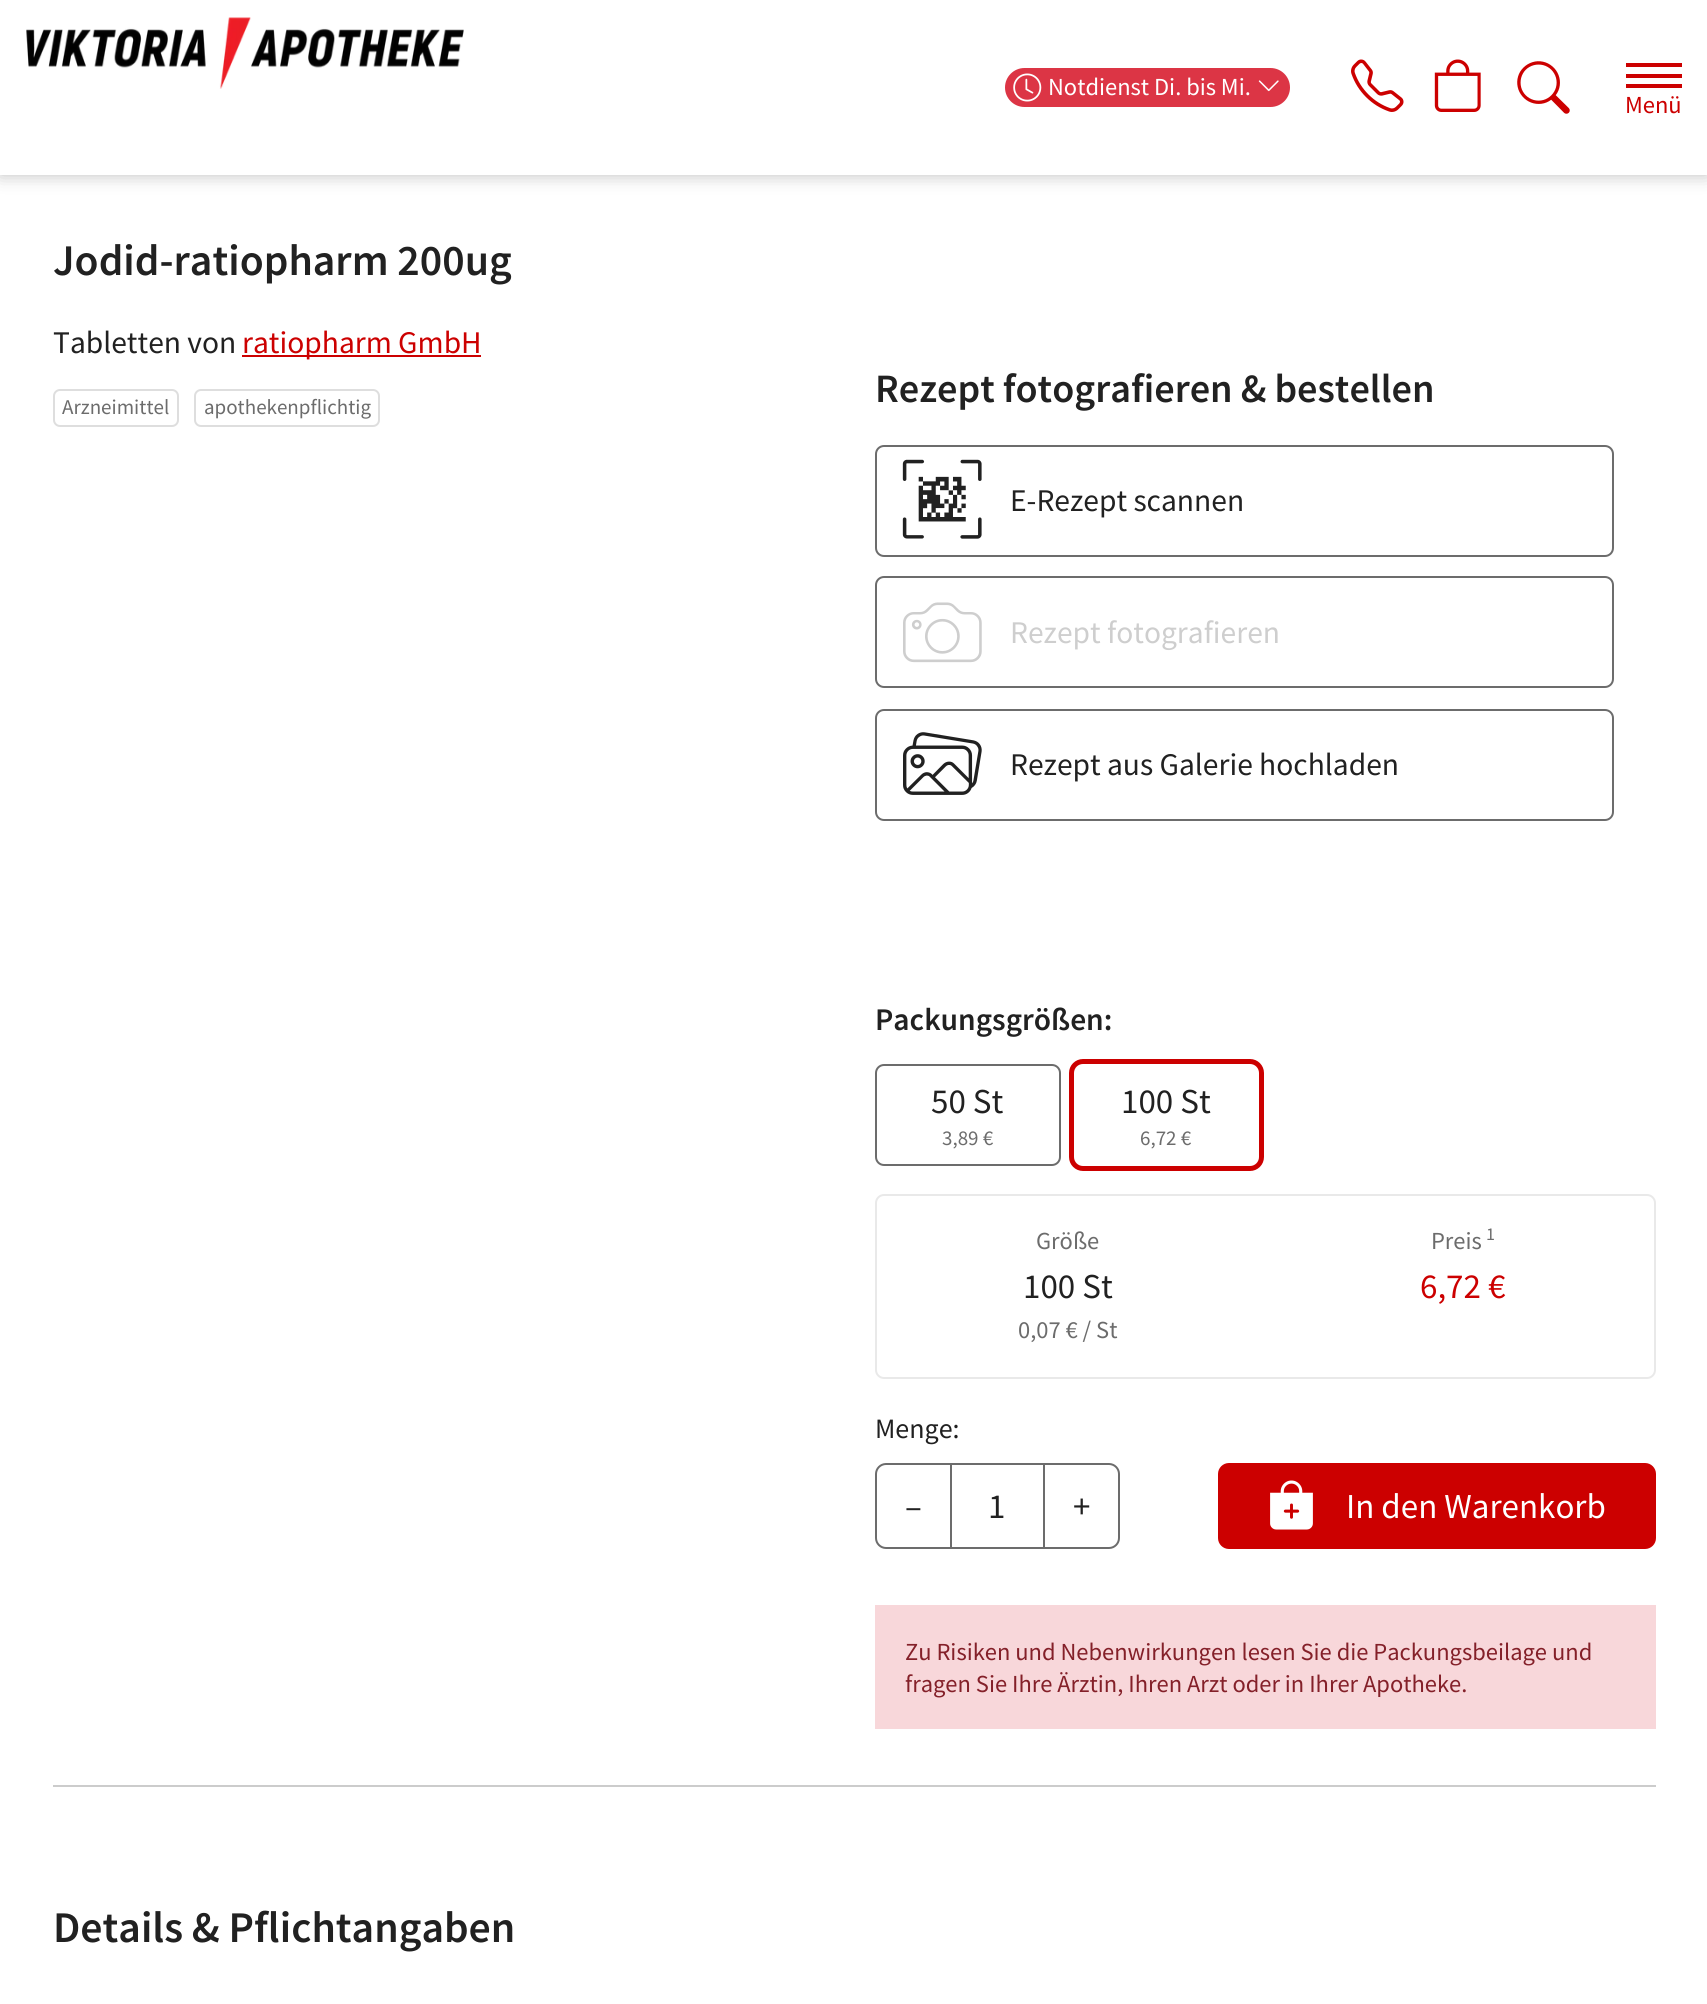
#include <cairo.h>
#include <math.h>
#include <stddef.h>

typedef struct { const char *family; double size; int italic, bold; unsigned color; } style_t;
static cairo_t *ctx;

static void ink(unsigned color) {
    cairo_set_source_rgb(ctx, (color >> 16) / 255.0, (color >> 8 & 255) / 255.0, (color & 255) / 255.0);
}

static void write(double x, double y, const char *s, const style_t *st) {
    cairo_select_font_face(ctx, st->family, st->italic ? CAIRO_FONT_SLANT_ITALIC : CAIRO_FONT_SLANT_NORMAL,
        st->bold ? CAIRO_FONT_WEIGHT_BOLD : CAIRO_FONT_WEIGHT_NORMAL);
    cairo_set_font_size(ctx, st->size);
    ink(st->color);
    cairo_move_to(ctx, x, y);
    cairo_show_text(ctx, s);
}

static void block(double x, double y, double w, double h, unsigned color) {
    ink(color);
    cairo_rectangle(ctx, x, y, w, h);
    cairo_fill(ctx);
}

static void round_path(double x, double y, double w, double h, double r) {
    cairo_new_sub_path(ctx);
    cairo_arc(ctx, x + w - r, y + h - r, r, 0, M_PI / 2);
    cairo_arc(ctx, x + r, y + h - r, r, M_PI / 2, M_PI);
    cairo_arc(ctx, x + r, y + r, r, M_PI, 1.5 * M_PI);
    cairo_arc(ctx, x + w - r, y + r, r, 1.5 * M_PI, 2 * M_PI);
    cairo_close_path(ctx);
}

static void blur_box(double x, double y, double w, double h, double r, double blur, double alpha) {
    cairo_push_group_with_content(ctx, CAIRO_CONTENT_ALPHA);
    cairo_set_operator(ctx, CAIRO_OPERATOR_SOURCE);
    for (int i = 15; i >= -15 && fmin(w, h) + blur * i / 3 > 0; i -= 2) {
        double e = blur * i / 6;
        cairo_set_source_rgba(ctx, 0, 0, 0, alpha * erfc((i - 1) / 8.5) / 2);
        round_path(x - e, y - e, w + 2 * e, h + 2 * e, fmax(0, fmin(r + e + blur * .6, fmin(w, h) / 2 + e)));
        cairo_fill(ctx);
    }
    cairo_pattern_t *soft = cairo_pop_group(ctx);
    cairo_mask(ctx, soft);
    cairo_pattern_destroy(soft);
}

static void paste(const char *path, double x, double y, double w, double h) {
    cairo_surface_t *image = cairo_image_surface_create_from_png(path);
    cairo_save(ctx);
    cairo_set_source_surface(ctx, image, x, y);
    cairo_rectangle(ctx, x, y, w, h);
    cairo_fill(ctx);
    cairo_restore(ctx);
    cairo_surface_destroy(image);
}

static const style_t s1 = {"Source Sans Pro", 24.5, 0, 0, 0xffffff};
static const style_t s2 = {"Source Sans Pro", 24.5, 0, 0, 0xcc0000};
static const style_t s3 = {"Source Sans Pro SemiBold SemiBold", 43.75, 0, 0, 0x212121};
static const style_t s4 = {"Source Sans Pro", 31.5, 0, 0, 0x212121};
static const style_t s5 = {"Source Sans Pro", 31.5, 0, 0, 0xcc0000};
static const style_t s6 = {"Source Sans Pro", 21, 0, 0, 0x6c6c6c};
static const style_t s7 = {"Source Sans Pro SemiBold SemiBold", 40.25, 0, 0, 0x212121};
static const style_t s8 = {"Source Sans Pro", 31.5, 0, 0, 0xcecece};
static const style_t s9 = {"Source Sans Pro SemiBold SemiBold", 31.5, 0, 0, 0x212121};
static const style_t s10 = {"Source Sans Pro", 35, 0, 0, 0x212121};
static const style_t s11 = {"Source Sans Pro", 24.5, 0, 0, 0x6c6c6c};
static const style_t s12 = {"Source Sans Pro", 18, 0, 0, 0x6c6c6c};
static const style_t s13 = {"Source Sans Pro", 35, 0, 0, 0xcc0000};
static const style_t s14 = {"Source Sans Pro", 28, 0, 0, 0x212121};
static const style_t s15 = {"Source Sans Pro", 35, 0, 0, 0xffffff};
static const style_t s16 = {"Source Sans Pro", 24.5, 0, 0, 0x842029};

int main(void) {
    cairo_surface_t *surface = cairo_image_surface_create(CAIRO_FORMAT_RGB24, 1707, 2004);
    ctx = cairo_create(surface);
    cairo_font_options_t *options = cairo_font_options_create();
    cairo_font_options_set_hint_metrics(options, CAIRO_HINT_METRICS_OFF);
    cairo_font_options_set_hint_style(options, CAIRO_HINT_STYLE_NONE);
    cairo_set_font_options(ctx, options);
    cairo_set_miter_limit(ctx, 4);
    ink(0xffffff);
    cairo_paint(ctx);
    ink(0x000000);
    blur_box(0, 0, 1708, 175, 0, 9, 0.25);
    block(0, 0, 1707, 175, 0xffffff);
    paste("pic1.png", 26, 17, 438, 72);
    ink(0xdc3545);
    round_path(1005, 68, 285, 39, 19.5);
    cairo_fill(ctx);
    paste("pic2.png", 1013, 73, 29, 29);
    write(1048, 95, "Notdienst Di. bis Mi.", &s1);
    paste("pic3.png", 1258, 80, 21, 12);
    paste("pic4.png", 1351, 59, 53, 53);
    paste("pic5.png", 1434, 59, 47, 53);
    paste("pic6.png", 1517, 61, 53, 53);
    block(1626, 74, 56, 4, 0xcc0000);
    block(1626, 63, 56, 4, 0xcc0000);
    block(1626, 84, 56, 4, 0xcc0000);
    write(1625, 113, "Menü", &s2);
    write(53, 275, "Jodid-ratiopharm 200ug", &s3);
    write(53, 353, "Tabletten von", &s4);
    block(242, 355, 239, 2, 0xcc0000);
    write(242, 353, "ratiopharm GmbH", &s5);
    round_path(54, 390, 124, 36, 6);
    ink(0xdedede);
    cairo_stroke(ctx);
    write(62, 414, "Arzneimittel", &s6);
    round_path(195, 390, 184, 36, 6);
    ink(0xdedede);
    cairo_stroke(ctx);
    write(204, 414, "apothekenpflichtig", &s6);
    write(875, 402, "Rezept fotografieren & bestellen", &s7);
    round_path(876, 446, 737, 110, 8);
    ink(0x6c6c6c);
    cairo_stroke(ctx);
    paste("pic7.png", 902, 459, 80, 80);
    write(1010, 511, "E-Rezept scannen", &s4);
    round_path(876, 577, 737, 110, 8);
    ink(0x6c6c6c);
    cairo_stroke(ctx);
    paste("pic8.png", 903, 602, 79, 61);
    write(1010, 643, "Rezept fotografieren", &s8);
    round_path(876, 710, 737, 110, 8);
    ink(0x6c6c6c);
    cairo_stroke(ctx);
    paste("pic9.png", 903, 732, 79, 63);
    write(1010, 775, "Rezept aus Galerie hochladen", &s4);
    write(875, 1030, "Packungsgrößen:", &s9);
    round_path(876, 1065, 184, 100, 8);
    ink(0x6c6c6c);
    cairo_stroke(ctx);
    write(931, 1113, "50 St", &s10);
    write(942, 1145, "3,89 €", &s6);
    round_path(1071.5, 1061.5, 190, 107, 11.5);
    ink(0xcc0000);
    cairo_set_line_width(ctx, 5);
    cairo_stroke(ctx);
    write(1121, 1113, "100 St", &s10);
    write(1140, 1145, "6,72 €", &s6);
    round_path(876, 1195, 779, 183, 8);
    ink(0xe9e9e9);
    cairo_set_line_width(ctx, 2);
    cairo_stroke(ctx);
    write(1036, 1249, "Größe", &s11);
    write(1023, 1298, "100 St", &s10);
    write(1018, 1338, "0,07 € / St", &s11);
    write(1431, 1249, "Preis", &s11);
    write(1486, 1240, "1", &s12);
    write(1420, 1298, "6,72 €", &s13);
    write(875, 1438, "Menge:", &s14);
    cairo_rectangle(ctx, 951, 1464, 93, 84);
    ink(0x6c6c6c);
    cairo_stroke(ctx);
    cairo_new_path(ctx);
    cairo_move_to(ctx, 886, 1464);
    cairo_line_to(ctx, 951, 1464);
    cairo_line_to(ctx, 951, 1548);
    cairo_line_to(ctx, 886, 1548);
    cairo_curve_to(ctx, 880.5, 1548, 876, 1543.5, 876, 1538);
    cairo_line_to(ctx, 876, 1474);
    cairo_curve_to(ctx, 876, 1468.5, 880.5, 1464, 886, 1464);
    cairo_close_path(ctx);
    cairo_stroke(ctx);
    write(905, 1518, "–", &s10);
    write(988, 1518, "1", &s10);
    cairo_new_path(ctx);
    cairo_move_to(ctx, 1044, 1464);
    cairo_line_to(ctx, 1109, 1464);
    cairo_curve_to(ctx, 1114.5, 1464, 1119, 1468.5, 1119, 1474);
    cairo_line_to(ctx, 1119, 1538);
    cairo_curve_to(ctx, 1119, 1543.5, 1114.5, 1548, 1109, 1548);
    cairo_line_to(ctx, 1044, 1548);
    cairo_close_path(ctx);
    ink(0x6c6c6c);
    cairo_stroke(ctx);
    write(1073, 1518, "+", &s10);
    ink(0xcc0000);
    round_path(1219, 1464, 436, 84, 10);
    cairo_fill_preserve(ctx);
    cairo_stroke(ctx);
    paste("pic10.png", 1270, 1480, 43, 50);
    write(1346, 1518, "In den Warenkorb", &s15);
    block(875, 1605, 781, 124, 0xf8d7da);
    write(905, 1660, "Zu Risiken und Nebenwirkungen lesen Sie die Packungsbeilage und", &s16);
    write(905, 1692, "fragen Sie Ihre Ärztin, Ihren Arzt oder in Ihrer Apotheke.", &s16);
    block(53, 1785, 1603, 2, 0xcccccc);
    write(53, 1942, "Details & Pflichtangaben", &s3);
    cairo_surface_write_to_png(surface, "screenshot.png");
    cairo_font_options_destroy(options);
    cairo_destroy(ctx);
    cairo_surface_destroy(surface);
    return 0;
}
